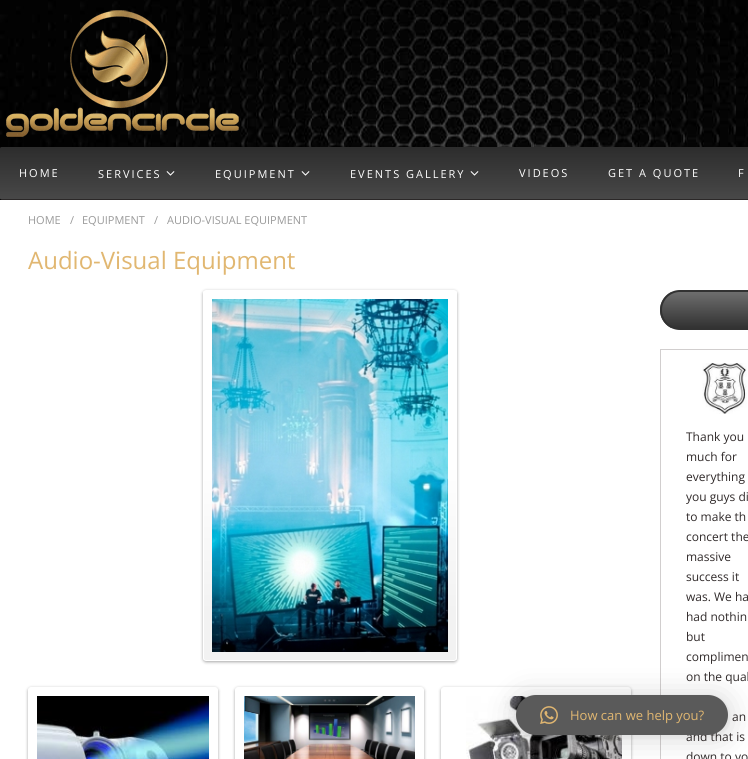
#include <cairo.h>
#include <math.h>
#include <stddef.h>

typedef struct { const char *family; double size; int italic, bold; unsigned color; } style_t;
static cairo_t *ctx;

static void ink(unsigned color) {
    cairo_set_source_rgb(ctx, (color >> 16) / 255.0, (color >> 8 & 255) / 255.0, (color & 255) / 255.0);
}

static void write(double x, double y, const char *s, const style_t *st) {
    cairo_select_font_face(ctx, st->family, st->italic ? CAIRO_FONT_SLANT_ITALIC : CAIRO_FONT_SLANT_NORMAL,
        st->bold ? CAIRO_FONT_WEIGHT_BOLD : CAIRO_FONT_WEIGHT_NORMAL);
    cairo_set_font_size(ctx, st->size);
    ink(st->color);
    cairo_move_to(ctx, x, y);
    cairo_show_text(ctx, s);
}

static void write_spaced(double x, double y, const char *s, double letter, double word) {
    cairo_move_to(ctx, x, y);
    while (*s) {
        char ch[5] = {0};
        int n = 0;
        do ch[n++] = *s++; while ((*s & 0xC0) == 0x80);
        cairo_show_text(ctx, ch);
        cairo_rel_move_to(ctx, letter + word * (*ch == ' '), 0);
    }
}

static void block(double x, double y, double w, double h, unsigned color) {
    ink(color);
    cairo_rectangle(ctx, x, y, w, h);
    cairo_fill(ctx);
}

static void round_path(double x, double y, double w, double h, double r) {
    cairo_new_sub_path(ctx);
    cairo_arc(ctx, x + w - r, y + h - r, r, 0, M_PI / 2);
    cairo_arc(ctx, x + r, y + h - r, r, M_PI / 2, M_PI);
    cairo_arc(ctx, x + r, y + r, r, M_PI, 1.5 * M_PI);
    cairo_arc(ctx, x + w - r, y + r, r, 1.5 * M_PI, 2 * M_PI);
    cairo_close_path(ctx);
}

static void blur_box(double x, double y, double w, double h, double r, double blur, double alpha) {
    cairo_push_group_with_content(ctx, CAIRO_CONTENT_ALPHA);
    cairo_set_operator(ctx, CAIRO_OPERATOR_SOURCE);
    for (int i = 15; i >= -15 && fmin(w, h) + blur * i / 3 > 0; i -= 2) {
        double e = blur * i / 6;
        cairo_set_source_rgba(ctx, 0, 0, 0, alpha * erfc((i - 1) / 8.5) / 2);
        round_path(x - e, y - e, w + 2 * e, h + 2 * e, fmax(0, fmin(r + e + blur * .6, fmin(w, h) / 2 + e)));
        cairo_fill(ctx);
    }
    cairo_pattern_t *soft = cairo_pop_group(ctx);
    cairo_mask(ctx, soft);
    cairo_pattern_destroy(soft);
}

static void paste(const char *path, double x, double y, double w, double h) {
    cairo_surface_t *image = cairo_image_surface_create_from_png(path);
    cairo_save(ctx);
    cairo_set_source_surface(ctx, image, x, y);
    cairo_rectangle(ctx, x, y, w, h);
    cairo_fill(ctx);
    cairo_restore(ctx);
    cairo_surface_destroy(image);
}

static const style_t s1 = {"Open Sans", 11, 0, 0, 0x999999};
static const style_t s2 = {"Open Sans", 24, 0, 0, 0xe1b771};
static const style_t s3 = {"Open Sans", 12, 0, 0, 0x302a2a};
static const style_t s4 = {"Open Sans", 13, 0, 0, 0xe1b771};

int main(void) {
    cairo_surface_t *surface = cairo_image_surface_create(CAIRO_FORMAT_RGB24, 748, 759);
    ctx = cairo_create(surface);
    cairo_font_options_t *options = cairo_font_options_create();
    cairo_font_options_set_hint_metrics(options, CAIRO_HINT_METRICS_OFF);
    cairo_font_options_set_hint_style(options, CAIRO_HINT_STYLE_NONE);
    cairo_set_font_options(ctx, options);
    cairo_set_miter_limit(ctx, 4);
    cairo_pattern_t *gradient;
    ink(0x000000);
    cairo_paint(ctx);
    paste("pic1.png", 0, 0, 748, 147);
    paste("pic2.png", 6, 10, 233, 127);
    blur_box(0, 148, 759, 53, 2, 3, 0.6);
    ink(0x2b2828);
    round_path(0, 147, 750, 53, 2);
    cairo_fill(ctx);
    paste("pic3.png", 0, 147, 748, 52);
    cairo_select_font_face(ctx, "Open Sans", CAIRO_FONT_SLANT_NORMAL, CAIRO_FONT_WEIGHT_NORMAL);
    cairo_set_font_size(ctx, 11);
    ink(0xffffff);
    write_spaced(19, 177, "HOME", 2, 0);
    write_spaced(98, 178, "SERVICES", 2, 0);
    paste("pic4.png", 166, 171, 9, 5);
    write_spaced(215, 178, "EQUIPMENT", 2, 0);
    paste("pic4.png", 301, 171, 9, 5);
    write_spaced(350, 178, "EVENTS GALLERY", 2, 0);
    paste("pic4.png", 470, 171, 9, 5);
    write_spaced(519, 177, "VIDEOS", 2, 0);
    write_spaced(608, 177, "GET A QUOTE", 2, 0);
    write_spaced(738, 177, "F", 2, 0);
    block(0, 200, 748, 559, 0xffffff);
    write(28, 224, "HOME", &s1);
    write(70, 224, "/", &s1);
    write(82, 224, "EQUIPMENT", &s1);
    write(154, 224, "/", &s1);
    write(167, 224, "AUDIO-VISUAL EQUIPMENT", &s1);
    write(28, 269, "Audio-Visual Equipment", &s2);
    ink(0x000000);
    blur_box(203, 291, 254, 371, 3, 1.5, 0.35);
    cairo_save(ctx);
    round_path(203, 290, 254, 371, 3);
    cairo_clip(ctx);
    gradient = cairo_pattern_create_linear(204, 291, 204, 660);
    cairo_pattern_add_color_stop_rgba(gradient, 0.47, 1, 1, 1, 1);
    cairo_pattern_add_color_stop_rgba(gradient, 0.87, 0.949, 0.949, 0.949, 1);
    cairo_set_source(ctx, gradient);
    cairo_pattern_destroy(gradient);
    cairo_rectangle(ctx, 203, 291, 254, 369);
    cairo_fill(ctx);
    cairo_restore(ctx);
    round_path(203.5, 290.5, 253, 370, 2.5);
    ink(0xffffff);
    cairo_set_line_width(ctx, 1);
    cairo_stroke(ctx);
    paste("pic5.png", 212, 299, 236, 353);
    ink(0x000000);
    blur_box(28, 688, 190, 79, 3, 1.5, 0.35);
    ink(0xffffff);
    round_path(28.5, 687.5, 189, 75, 2.5);
    cairo_fill_preserve(ctx);
    cairo_stroke(ctx);
    paste("pic6.png", 37, 696, 172, 63);
    ink(0x000000);
    blur_box(235, 688, 189, 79, 3, 1.5, 0.35);
    ink(0xffffff);
    round_path(235.5, 687.5, 188, 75, 2.5);
    cairo_fill_preserve(ctx);
    cairo_stroke(ctx);
    paste("pic7.png", 244, 696, 171, 63);
    ink(0x000000);
    blur_box(441, 688, 190, 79, 3, 1.5, 0.35);
    ink(0xffffff);
    round_path(441.5, 687.5, 189, 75, 2.5);
    cairo_fill_preserve(ctx);
    cairo_stroke(ctx);
    paste("pic8.png", 466, 696, 156, 63);
    cairo_save(ctx);
    round_path(660, 290, 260, 40, 20);
    cairo_clip(ctx);
    gradient = cairo_pattern_create_linear(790, 292, 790, 328);
    cairo_pattern_add_color_stop_rgba(gradient, 0, 0.431, 0.431, 0.431, 1);
    cairo_pattern_add_color_stop_rgba(gradient, 1, 0.196, 0.196, 0.196, 1);
    cairo_set_source(ctx, gradient);
    cairo_pattern_destroy(gradient);
    cairo_rectangle(ctx, 660, 292, 88, 36);
    cairo_fill(ctx);
    cairo_restore(ctx);
    round_path(661, 291, 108, 38, 19);
    ink(0x323232);
    cairo_set_line_width(ctx, 2);
    cairo_stroke(ctx);
    cairo_rectangle(ctx, 660.5, 349.5, 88, 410);
    ink(0xd1cece);
    cairo_set_line_width(ctx, 1);
    cairo_stroke(ctx);
    paste("pic9.png", 702, 363, 45, 51);
    write(686, 441, "Thank you", &s3);
    write(686, 461, "much for", &s3);
    write(686, 481, "everything", &s3);
    write(686, 501, "you guys di", &s3);
    write(686, 521, "to make th", &s3);
    write(686, 541, "concert the", &s3);
    write(686, 561, "massive", &s3);
    write(686, 581, "success it", &s3);
    write(686, 601, "was. We ha", &s3);
    write(686, 621, "had nothin", &s3);
    write(686, 641, "but", &s3);
    write(686, 661, "complimen", &s3);
    write(686, 681, "on the qual", &s3);
    write(732, 721, "an", &s3);
    write(686, 741, "and that is", &s3);
    write(686, 761, "down to yo", &s3);
    ink(0x000000);
    blur_box(516, 697, 212, 40, 20, 16, 0.16);
    blur_box(516, 696, 212, 40, 20, 3, 0.06);
    ink(0x5a5a5a);
    round_path(516, 695, 212, 40, 20);
    cairo_fill(ctx);
    paste("pic10.png", 540, 706, 18, 18);
    write(570, 720, "How can we help you?", &s4);
    cairo_surface_write_to_png(surface, "screenshot.png");
    cairo_font_options_destroy(options);
    cairo_destroy(ctx);
    cairo_surface_destroy(surface);
    return 0;
}
